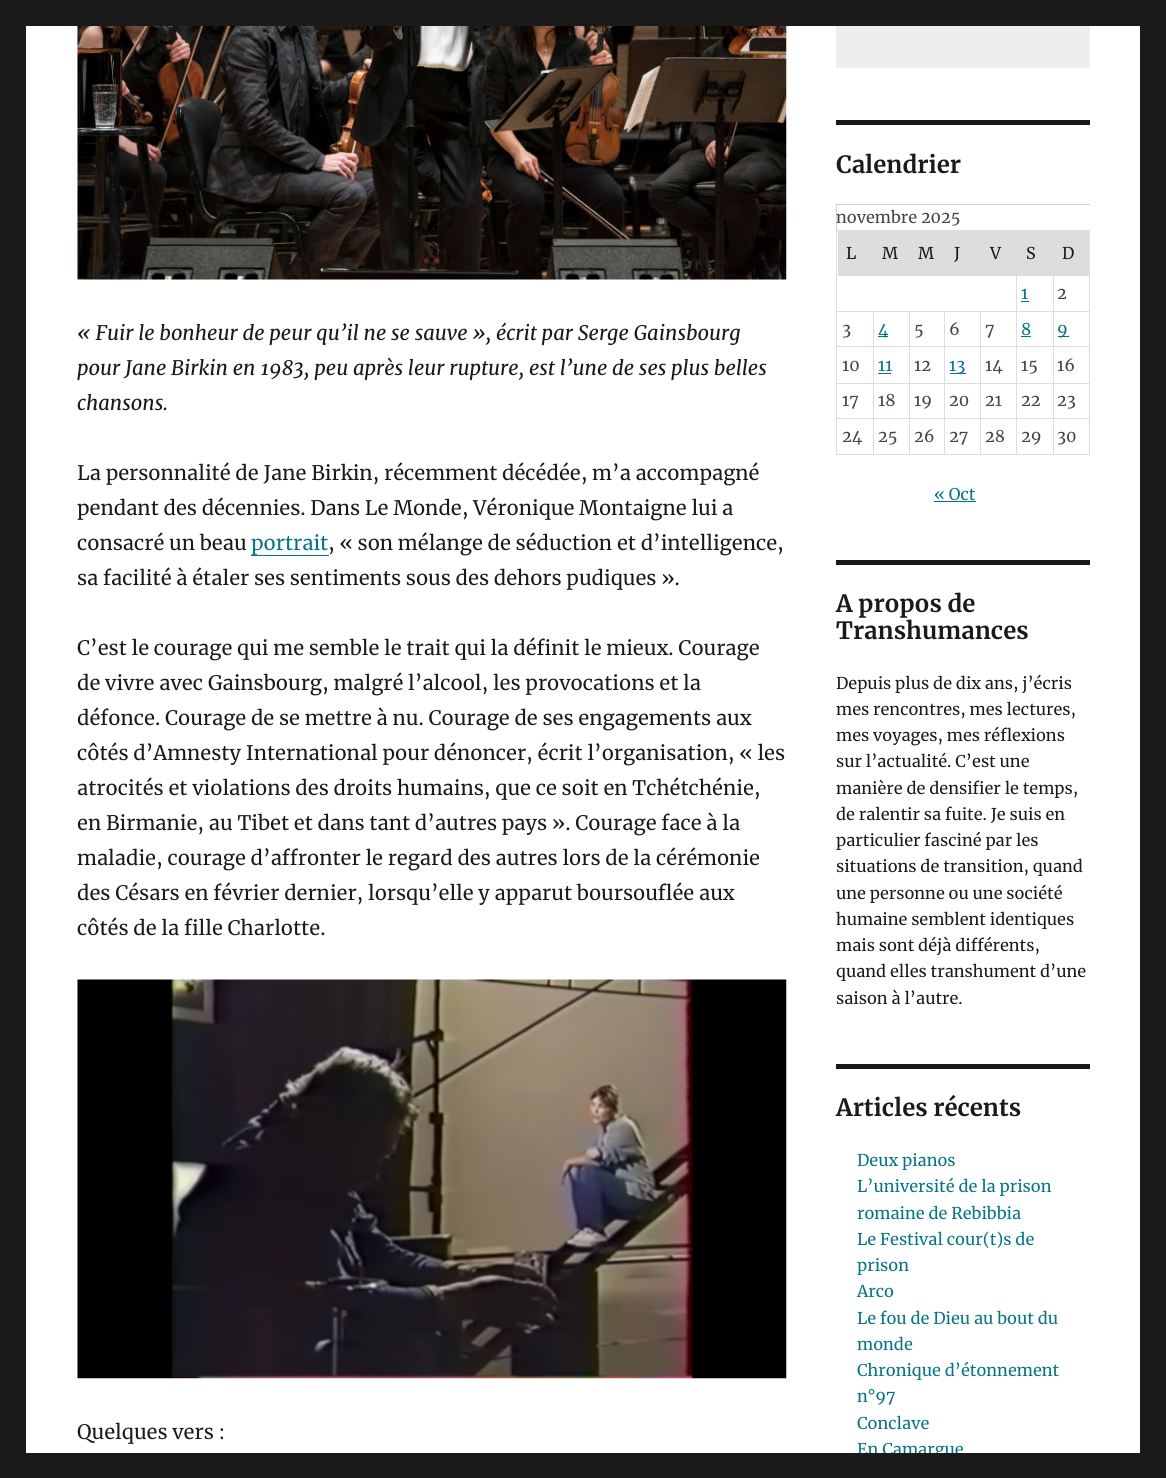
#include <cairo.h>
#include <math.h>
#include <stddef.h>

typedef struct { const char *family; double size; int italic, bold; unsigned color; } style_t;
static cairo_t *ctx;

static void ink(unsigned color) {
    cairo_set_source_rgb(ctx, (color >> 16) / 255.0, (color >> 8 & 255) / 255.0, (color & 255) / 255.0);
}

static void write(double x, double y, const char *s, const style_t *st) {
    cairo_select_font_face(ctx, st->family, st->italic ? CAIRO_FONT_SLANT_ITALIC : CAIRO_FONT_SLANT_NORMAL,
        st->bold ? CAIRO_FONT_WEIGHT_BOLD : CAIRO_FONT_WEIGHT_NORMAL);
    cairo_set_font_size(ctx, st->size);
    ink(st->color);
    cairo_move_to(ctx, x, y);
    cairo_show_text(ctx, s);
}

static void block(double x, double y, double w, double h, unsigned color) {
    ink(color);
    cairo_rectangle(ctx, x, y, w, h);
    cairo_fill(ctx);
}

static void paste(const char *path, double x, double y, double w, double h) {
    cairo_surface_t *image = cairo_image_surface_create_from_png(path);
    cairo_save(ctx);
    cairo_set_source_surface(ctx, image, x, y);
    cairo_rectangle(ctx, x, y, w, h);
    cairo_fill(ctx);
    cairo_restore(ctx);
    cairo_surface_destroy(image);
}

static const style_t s1 = {"Merriweather", 20, 1, 0, 0x1a1a1a};
static const style_t s2 = {"Merriweather", 20, 0, 0, 0x1a1a1a};
static const style_t s3 = {"Merriweather", 20, 0, 0, 0x057485};
static const style_t s4 = {"Merriweather", 23.75, 0, 1, 0x1a1a1a};
static const style_t s5 = {"Merriweather", 16.25, 0, 0, 0x40464d};
static const style_t s6 = {"Merriweather", 16.25, 0, 0, 0x1a1a1a};
static const style_t s7 = {"Merriweather", 16.25, 0, 0, 0x057485};

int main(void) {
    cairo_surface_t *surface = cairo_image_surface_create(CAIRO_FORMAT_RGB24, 1166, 1478);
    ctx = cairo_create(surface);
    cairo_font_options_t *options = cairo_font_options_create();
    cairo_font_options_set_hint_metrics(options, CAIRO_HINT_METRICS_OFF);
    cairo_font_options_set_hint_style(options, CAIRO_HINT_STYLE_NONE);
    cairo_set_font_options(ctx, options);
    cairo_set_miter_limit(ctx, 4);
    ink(0x1a1a1a);
    cairo_paint(ctx);
    block(26, 26, 1114, 1427, 0xffffff);
    paste("pic1.png", 77, 26, 710, 254);
    write(77, 340, "« Fuir le bonheur de peur qu’il ne se sauve », écrit par Serge Gainsbourg", &s1);
    write(77, 375, "pour Jane Birkin en 1983, peu après leur rupture, est l’une de ses plus belles", &s1);
    write(77, 410, "chansons.", &s1);
    write(77, 480, "La personnalité de Jane Birkin, récemment décédée, m’a accompagné", &s2);
    write(77, 515, "pendant des décennies. Dans Le Monde, Véronique Montaigne lui a", &s2);
    write(77, 550, "consacré un beau", &s2);
    write(251, 550, "portrait", &s3);
    cairo_new_path(ctx);
    cairo_move_to(ctx, 251, 531);
    cairo_line_to(ctx, 251, 556);
    cairo_line_to(ctx, 329, 556);
    cairo_line_to(ctx, 329, 531);
    cairo_line_to(ctx, 329, 555);
    cairo_line_to(ctx, 251, 555);
    cairo_close_path(ctx);
    cairo_fill(ctx);
    write(328, 550, ", « son mélange de séduction et d’intelligence,", &s2);
    write(77, 585, "sa facilité à étaler ses sentiments sous des dehors pudiques ».", &s2);
    write(77, 655, "C’est le courage qui me semble le trait qui la définit le mieux. Courage", &s2);
    write(77, 690, "de vivre avec Gainsbourg, malgré l’alcool, les provocations et la", &s2);
    write(77, 725, "défonce. Courage de se mettre à nu. Courage de ses engagements aux", &s2);
    write(77, 760, "côtés d’Amnesty International pour dénoncer, écrit l’organisation, « les", &s2);
    write(77, 795, "atrocités et violations des droits humains, que ce soit en Tchétchénie,", &s2);
    write(77, 830, "en Birmanie, au Tibet et dans tant d’autres pays ». Courage face à la", &s2);
    write(77, 865, "maladie, courage d’affronter le regard des autres lors de la cérémonie", &s2);
    write(77, 900, "des Césars en février dernier, lorsqu’elle y apparut boursouflée aux", &s2);
    write(77, 935, "côtés de la fille Charlotte.", &s2);
    paste("pic2.png", 77, 979, 710, 400);
    write(77, 1439, "Quelques vers :", &s2);
    block(836, 26, 254, 42, 0xeeeeee);
    block(836, 120, 254, 5, 0x1a1a1a);
    write(836, 173, "Calendrier", &s4);
    block(836, 204, 254, 1, 0xd1d1d1);
    block(836, 204, 1, 26, 0xd1d1d1);
    write(836, 223, "novembre 2025", &s5);
    block(838, 231, 178, 44, 0xdddddd);
    block(836, 230, 254, 1, 0xdddddd);
    block(1016, 231, 37, 45, 0xdddddd);
    block(1053, 311, 37, 1, 0xdddddd);
    block(1053, 346, 37, 1, 0xdddddd);
    block(1053, 383, 37, 1, 0xdddddd);
    block(1053, 418, 37, 1, 0xdddddd);
    block(1089, 418, 1, 37, 0xdddddd);
    block(1053, 454, 37, 1, 0xdddddd);
    block(1053, 418, 1, 37, 0xdddddd);
    block(1016, 418, 38, 1, 0xdddddd);
    block(1053, 383, 1, 36, 0xdddddd);
    block(1016, 383, 38, 1, 0xdddddd);
    block(1053, 346, 1, 38, 0xdddddd);
    block(1016, 346, 38, 1, 0xdddddd);
    block(1053, 311, 1, 37, 0xdddddd);
    block(1016, 311, 38, 1, 0xdddddd);
    block(1016, 454, 38, 1, 0xdddddd);
    block(1016, 418, 1, 37, 0xdddddd);
    block(980, 418, 38, 1, 0xdddddd);
    block(1016, 383, 1, 36, 0xdddddd);
    block(980, 383, 38, 1, 0xdddddd);
    block(1016, 346, 1, 38, 0xdddddd);
    block(980, 346, 38, 1, 0xdddddd);
    block(1016, 311, 1, 37, 0xdddddd);
    block(980, 311, 38, 1, 0xdddddd);
    block(1016, 275, 1, 38, 0xdddddd);
    block(836, 275, 182, 1, 0xdddddd);
    block(980, 454, 38, 1, 0xdddddd);
    block(980, 418, 1, 37, 0xdddddd);
    block(944, 418, 37, 1, 0xdddddd);
    block(980, 383, 1, 36, 0xdddddd);
    block(944, 383, 37, 1, 0xdddddd);
    block(980, 346, 1, 38, 0xdddddd);
    block(944, 346, 37, 1, 0xdddddd);
    block(980, 311, 1, 37, 0xdddddd);
    block(944, 311, 37, 1, 0xdddddd);
    block(944, 454, 37, 1, 0xdddddd);
    block(944, 418, 1, 37, 0xdddddd);
    block(909, 418, 36, 1, 0xdddddd);
    block(944, 383, 1, 36, 0xdddddd);
    block(909, 383, 36, 1, 0xdddddd);
    block(944, 346, 1, 38, 0xdddddd);
    block(909, 346, 36, 1, 0xdddddd);
    block(944, 311, 1, 37, 0xdddddd);
    block(909, 311, 36, 1, 0xdddddd);
    block(909, 454, 36, 1, 0xdddddd);
    block(909, 418, 1, 37, 0xdddddd);
    block(873, 418, 37, 1, 0xdddddd);
    block(909, 383, 1, 36, 0xdddddd);
    block(873, 383, 37, 1, 0xdddddd);
    block(909, 346, 1, 38, 0xdddddd);
    block(873, 346, 37, 1, 0xdddddd);
    block(909, 311, 1, 37, 0xdddddd);
    block(873, 311, 37, 1, 0xdddddd);
    block(873, 454, 37, 1, 0xdddddd);
    block(873, 418, 1, 37, 0xdddddd);
    block(836, 418, 38, 1, 0xdddddd);
    block(873, 383, 1, 36, 0xdddddd);
    block(836, 383, 38, 1, 0xdddddd);
    block(873, 346, 1, 38, 0xdddddd);
    block(836, 346, 38, 1, 0xdddddd);
    block(873, 311, 1, 37, 0xdddddd);
    block(836, 311, 38, 1, 0xdddddd);
    block(836, 454, 38, 1, 0xdddddd);
    block(836, 418, 1, 37, 0xdddddd);
    block(836, 383, 1, 36, 0xdddddd);
    block(836, 346, 1, 38, 0xdddddd);
    block(836, 311, 1, 37, 0xdddddd);
    block(836, 275, 1, 38, 0xdddddd);
    block(836, 230, 1, 46, 0xdddddd);
    write(846, 259, "L", &s6);
    write(882, 259, "M", &s6);
    write(918, 259, "M", &s6);
    write(954, 259, "J", &s6);
    write(990, 259, "V", &s6);
    write(1026, 259, "S", &s6);
    block(1053, 231, 36, 44, 0xdddddd);
    block(1053, 275, 37, 1, 0xdddddd);
    block(1089, 383, 1, 36, 0xdddddd);
    block(1089, 346, 1, 38, 0xdddddd);
    block(1089, 311, 1, 37, 0xdddddd);
    block(1089, 275, 1, 38, 0xdddddd);
    block(1089, 230, 1, 46, 0xdddddd);
    write(1062, 259, "D", &s6);
    write(1021, 299, "1", &s7);
    block(1021, 301, 8, 1, 0x057485);
    block(1053, 275, 1, 38, 0xdddddd);
    write(1057, 299, "2", &s5);
    write(842, 335, "3", &s5);
    block(878, 336, 10, 1, 0x057485);
    write(878, 335, "4", &s7);
    write(914, 335, "5", &s5);
    write(949, 335, "6", &s5);
    write(985, 335, "7", &s5);
    write(1021, 335, "8", &s7);
    block(1021, 336, 10, 1, 0x057485);
    block(1058, 336, 11, 1, 0x057485);
    write(1057, 335, "9", &s7);
    write(842, 371, "10", &s5);
    write(878, 371, "11", &s7);
    block(878, 373, 13, 1, 0x057485);
    write(914, 371, "12", &s5);
    block(950, 373, 16, 1, 0x057485);
    write(949, 371, "13", &s7);
    write(985, 371, "14", &s5);
    write(1021, 371, "15", &s5);
    write(1057, 371, "16", &s5);
    write(842, 406, "17", &s5);
    write(878, 406, "18", &s5);
    write(914, 406, "19", &s5);
    write(949, 406, "20", &s5);
    write(985, 406, "21", &s5);
    write(1021, 406, "22", &s5);
    write(1057, 406, "23", &s5);
    write(842, 442, "24", &s5);
    write(878, 442, "25", &s5);
    write(914, 442, "26", &s5);
    write(949, 442, "27", &s5);
    write(985, 442, "28", &s5);
    write(1021, 442, "29", &s5);
    write(1057, 442, "30", &s5);
    write(934, 500, "« Oct", &s7);
    block(934, 501, 42, 1, 0x057485);
    block(836, 560, 254, 5, 0x1a1a1a);
    write(836, 612, "A propos de", &s4);
    write(836, 639, "Transhumances", &s4);
    write(836, 689, "Depuis plus de dix ans, j’écris", &s6);
    write(836, 715, "mes rencontres, mes lectures,", &s6);
    write(836, 741, "mes voyages, mes réflexions", &s6);
    write(836, 767, "sur l’actualité. C’est une", &s6);
    write(836, 794, "manière de densifier le temps,", &s6);
    write(836, 820, "de ralentir sa fuite. Je suis en", &s6);
    write(836, 846, "particulier fasciné par les", &s6);
    write(836, 872, "situations de transition, quand", &s6);
    write(836, 899, "une personne ou une société", &s6);
    write(836, 925, "humaine semblent identiques", &s6);
    write(836, 951, "mais sont déjà différents,", &s6);
    write(836, 977, "quand elles transhument d’une", &s6);
    write(836, 1004, "saison à l’autre.", &s6);
    block(836, 1064, 254, 5, 0x1a1a1a);
    write(836, 1116, "Articles récents", &s4);
    write(857, 1166, "Deux pianos", &s7);
    write(857, 1192, "L’université de la prison", &s7);
    write(857, 1219, "romaine de Rebibbia", &s7);
    write(857, 1245, "Le Festival cour(t)s de", &s7);
    write(857, 1271, "prison", &s7);
    write(857, 1297, "Arco", &s7);
    write(857, 1324, "Le fou de Dieu au bout du", &s7);
    write(857, 1350, "monde", &s7);
    write(857, 1376, "Chronique d’étonnement", &s7);
    write(857, 1402, "n°97", &s7);
    write(857, 1429, "Conclave", &s7);
    write(857, 1455, "En Camargue", &s7);
    block(857, 1453, 106, 7, 0x1a1a1a);
    cairo_surface_write_to_png(surface, "screenshot.png");
    cairo_font_options_destroy(options);
    cairo_destroy(ctx);
    cairo_surface_destroy(surface);
    return 0;
}
